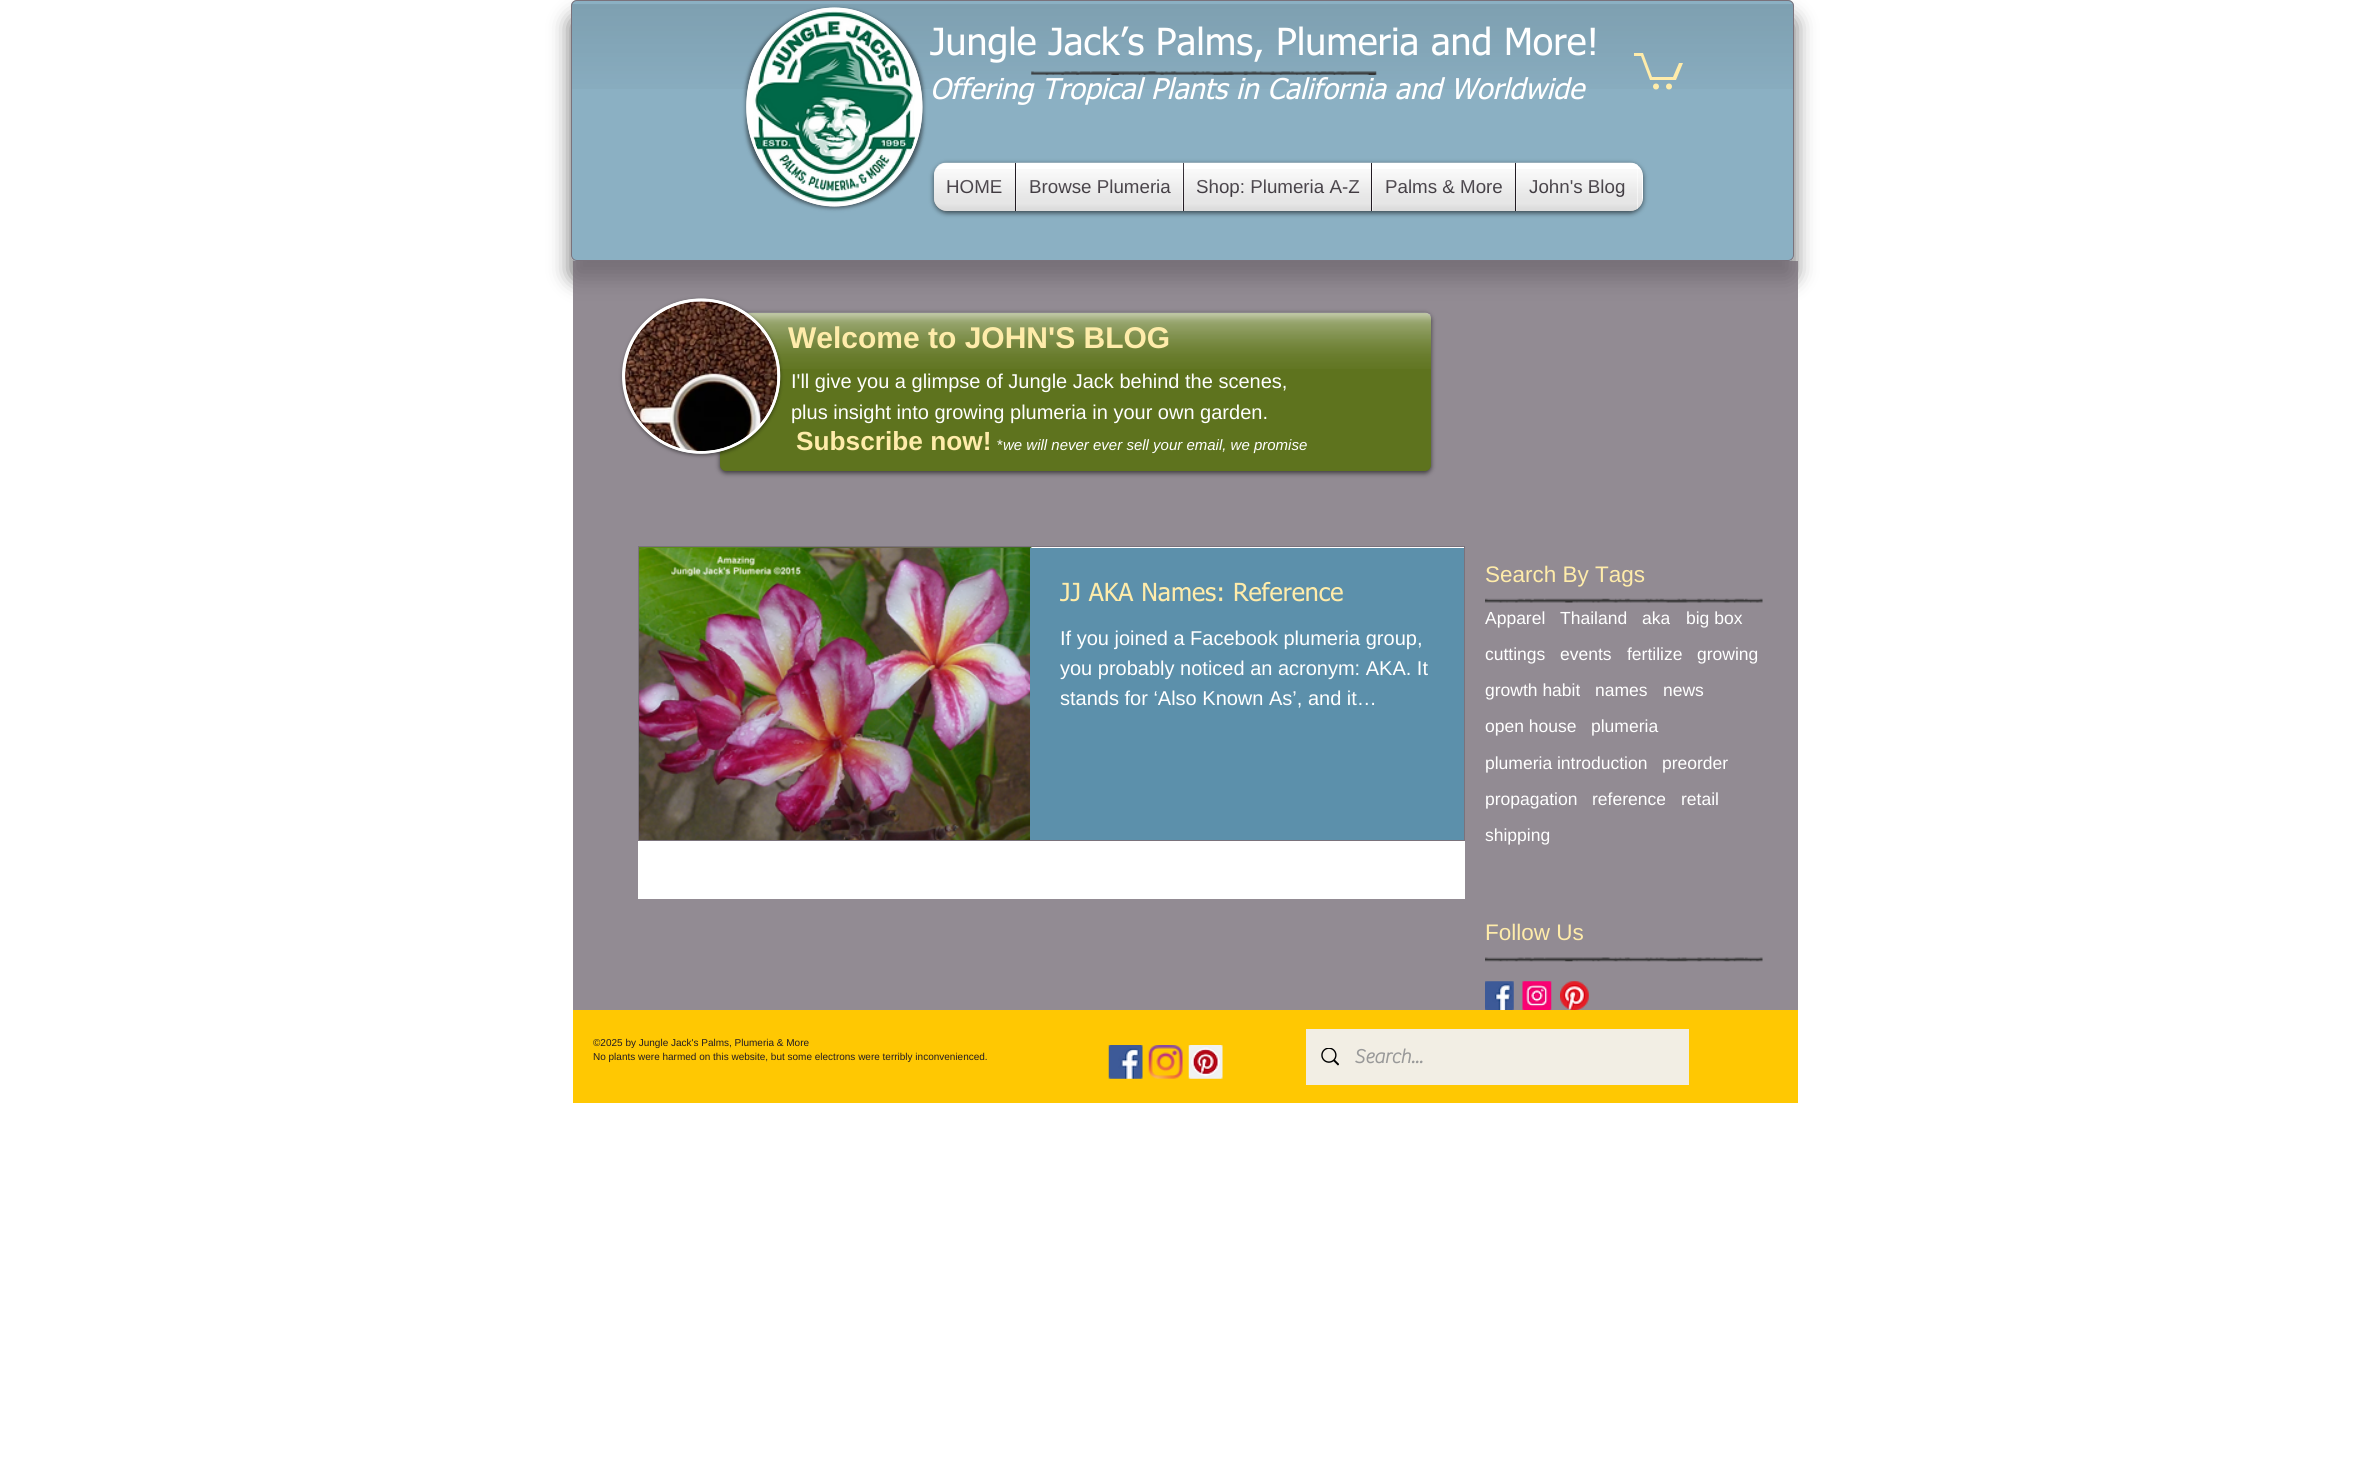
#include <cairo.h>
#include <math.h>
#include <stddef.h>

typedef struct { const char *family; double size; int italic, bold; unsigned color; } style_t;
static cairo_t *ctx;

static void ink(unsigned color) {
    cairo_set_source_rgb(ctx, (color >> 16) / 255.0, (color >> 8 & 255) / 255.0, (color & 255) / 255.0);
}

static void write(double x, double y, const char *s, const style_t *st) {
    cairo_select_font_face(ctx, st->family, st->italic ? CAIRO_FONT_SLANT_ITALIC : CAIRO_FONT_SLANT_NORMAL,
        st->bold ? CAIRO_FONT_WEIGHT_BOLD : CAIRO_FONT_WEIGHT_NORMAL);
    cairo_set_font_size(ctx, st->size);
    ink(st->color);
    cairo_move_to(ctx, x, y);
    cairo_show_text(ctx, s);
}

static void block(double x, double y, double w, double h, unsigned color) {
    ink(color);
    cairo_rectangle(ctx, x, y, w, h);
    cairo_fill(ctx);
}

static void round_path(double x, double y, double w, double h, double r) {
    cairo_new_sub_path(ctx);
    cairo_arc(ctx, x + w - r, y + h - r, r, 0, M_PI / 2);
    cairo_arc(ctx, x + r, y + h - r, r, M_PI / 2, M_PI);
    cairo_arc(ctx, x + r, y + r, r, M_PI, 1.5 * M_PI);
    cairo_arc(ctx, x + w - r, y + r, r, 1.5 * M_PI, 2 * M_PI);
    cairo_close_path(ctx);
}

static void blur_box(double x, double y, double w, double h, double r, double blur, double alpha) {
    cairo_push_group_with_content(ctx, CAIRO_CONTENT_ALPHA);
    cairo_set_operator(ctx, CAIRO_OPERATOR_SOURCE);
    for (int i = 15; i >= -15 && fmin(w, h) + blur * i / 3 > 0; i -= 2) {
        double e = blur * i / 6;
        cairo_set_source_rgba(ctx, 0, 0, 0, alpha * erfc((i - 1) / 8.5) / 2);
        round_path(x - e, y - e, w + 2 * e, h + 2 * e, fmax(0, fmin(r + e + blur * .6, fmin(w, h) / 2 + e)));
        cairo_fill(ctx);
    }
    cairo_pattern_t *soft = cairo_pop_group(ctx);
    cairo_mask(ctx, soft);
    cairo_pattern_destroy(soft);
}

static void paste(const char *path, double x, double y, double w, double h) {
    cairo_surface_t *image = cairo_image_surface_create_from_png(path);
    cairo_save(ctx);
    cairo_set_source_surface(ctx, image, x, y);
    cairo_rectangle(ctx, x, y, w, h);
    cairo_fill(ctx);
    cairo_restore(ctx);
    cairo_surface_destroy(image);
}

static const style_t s1 = {"tahoma", 37.5, 0, 0, 0xffffff};
static const style_t s2 = {"tahoma", 28.75, 1, 0, 0xffffff};
static const style_t s3 = {"Liberation Sans", 18.75, 0, 0, 0x221b23};
static const style_t s4 = {"Liberation Sans", 30, 0, 1, 0xffecaa};
static const style_t s5 = {"Liberation Sans", 20, 0, 0, 0xffffff};
static const style_t s6 = {"Liberation Sans", 26.25, 0, 1, 0xffecaa};
static const style_t s7 = {"Liberation Sans", 15, 0, 0, 0xffffff};
static const style_t s8 = {"Liberation Sans", 15, 1, 0, 0xffffff};
static const style_t s9 = {"Liberation Sans", 22.5, 0, 0, 0xffecaa};
static const style_t s10 = {"tahoma", 25, 0, 0, 0xffecaa};
static const style_t s11 = {"Liberation Sans", 17.5, 0, 0, 0xffffff};
static const style_t s12 = {"Liberation Sans", 10, 0, 0, 0x221b23};
static const style_t s13 = {"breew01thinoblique", 20, 0, 1, 0x999999};

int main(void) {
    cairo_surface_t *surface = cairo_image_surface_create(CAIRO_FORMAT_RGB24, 2370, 1483);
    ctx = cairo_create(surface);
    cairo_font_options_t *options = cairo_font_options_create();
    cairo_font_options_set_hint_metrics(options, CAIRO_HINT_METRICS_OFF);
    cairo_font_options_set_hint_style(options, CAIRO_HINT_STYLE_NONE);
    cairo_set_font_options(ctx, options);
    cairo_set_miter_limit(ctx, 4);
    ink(0xffffff);
    cairo_paint(ctx);
    cairo_save(ctx);
    cairo_set_fill_rule(ctx, CAIRO_FILL_RULE_EVEN_ODD);
    cairo_new_path(ctx);
    cairo_move_to(ctx, 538, 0);
    cairo_line_to(ctx, 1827, 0);
    cairo_line_to(ctx, 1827, 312);
    cairo_line_to(ctx, 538, 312);
    cairo_close_path(ctx);
    cairo_move_to(ctx, 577, 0);
    cairo_line_to(ctx, 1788, 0);
    cairo_curve_to(ctx, 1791.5, 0, 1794, 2.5, 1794, 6);
    cairo_line_to(ctx, 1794, 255);
    cairo_curve_to(ctx, 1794, 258.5, 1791.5, 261, 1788, 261);
    cairo_line_to(ctx, 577, 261);
    cairo_curve_to(ctx, 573.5, 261, 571, 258.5, 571, 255);
    cairo_line_to(ctx, 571, 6);
    cairo_curve_to(ctx, 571, 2.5, 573.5, 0, 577, 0);
    cairo_close_path(ctx);
    cairo_clip(ctx);
    ink(0x000000);
    blur_box(571, 18, 1223, 261, 6, 10.5, 0.6);
    cairo_restore(ctx);
    cairo_set_source_rgba(ctx, 0.361, 0.565, 0.671, 0.71);
    round_path(571, 0, 1223, 261, 6);
    cairo_fill(ctx);
    paste("pic1.png", 571, 4, 1223, 85);
    round_path(571.5, 0.5, 1222, 260, 5.5);
    ink(0x7a727b);
    cairo_set_line_width(ctx, 1);
    cairo_stroke(ctx);
    ink(0x000000);
    blur_box(746, 9, 177, 199, 88.5, 2, 0.5);
    ink(0xffffff);
    cairo_new_path(ctx);
    cairo_move_to(ctx, 834.5, 7.5);
    cairo_curve_to(ctx, 883, 7.5, 922.5, 52, 922.5, 107);
    cairo_curve_to(ctx, 922.5, 162, 883, 206.5, 834.5, 206.5);
    cairo_curve_to(ctx, 786, 206.5, 746.5, 162, 746.5, 107);
    cairo_curve_to(ctx, 746.5, 52, 786, 7.5, 834.5, 7.5);
    cairo_close_path(ctx);
    cairo_fill(ctx);
    cairo_new_path(ctx);
    cairo_move_to(ctx, 834.5, 9);
    cairo_curve_to(ctx, 882.5, 9, 921, 52.5, 921, 107);
    cairo_curve_to(ctx, 921, 161, 882.5, 205, 834.5, 205);
    cairo_curve_to(ctx, 786.5, 205, 747.5, 161, 747.5, 107);
    cairo_curve_to(ctx, 747.5, 52.5, 786.5, 9, 834.5, 9);
    cairo_close_path(ctx);
    cairo_set_line_width(ctx, 2.5);
    cairo_stroke(ctx);
    paste("pic2.png", 753, 11, 163, 192);
    write(930, 55, "Jungle Jack’s Palms, Plumeria and More!", &s1);
    write(930, 99, "Offering Tropical Plants in California and Worldwide", &s2);
    ink(0xffecaa);
    cairo_new_path(ctx);
    cairo_move_to(ctx, 1683, 63);
    cairo_line_to(ctx, 1676, 80);
    cairo_line_to(ctx, 1650, 80);
    cairo_line_to(ctx, 1641, 56);
    cairo_line_to(ctx, 1634, 56);
    cairo_line_to(ctx, 1634, 53);
    cairo_line_to(ctx, 1643, 53);
    cairo_line_to(ctx, 1652, 77);
    cairo_line_to(ctx, 1673, 77);
    cairo_line_to(ctx, 1679, 63);
    cairo_fill(ctx);
    cairo_arc(ctx, 1669, 86.5, 3, 0, 2 * M_PI);
    cairo_fill(ctx);
    cairo_arc(ctx, 1656, 86.5, 3, 0, 2 * M_PI);
    cairo_fill(ctx);
    paste("pic3.png", 1031, 71, 346, 4);
    ink(0x000000);
    blur_box(934, 164, 709, 49, 13, 2.5, 0.6);
    ink(0xffffff);
    round_path(934, 163, 709, 48, 13);
    cairo_fill(ctx);
    paste("pic4.png", 934, 162, 708, 46);
    paste("pic5.png", 934, 169, 708, 42);
    cairo_new_path(ctx);
    cairo_move_to(ctx, 947, 163);
    cairo_line_to(ctx, 1015, 163);
    cairo_line_to(ctx, 1015, 211);
    cairo_line_to(ctx, 947, 211);
    cairo_curve_to(ctx, 940, 211, 934, 205, 934, 198);
    cairo_line_to(ctx, 934, 176);
    cairo_curve_to(ctx, 934, 169, 940, 163, 947, 163);
    cairo_close_path(ctx);
    cairo_fill(ctx);
    write(946, 193, "HOME", &s3);
    paste("pic6.png", 934, 162, 81, 43);
    paste("pic7.png", 934, 169, 81, 42);
    block(1016, 169, 167, 42, 0xffffff);
    block(1015, 163, 1, 48, 0x221b23);
    write(1029, 193, "Browse Plumeria", &s3);
    paste("pic8.png", 1016, 162, 167, 32);
    paste("pic9.png", 1016, 169, 167, 42);
    block(1184, 169, 187, 42, 0xffffff);
    block(1183, 163, 1, 48, 0x221b23);
    write(1196, 193, "Shop: Plumeria A-Z", &s3);
    paste("pic10.png", 1183, 162, 188, 42);
    paste("pic11.png", 1184, 169, 187, 42);
    block(1372, 169, 143, 42, 0xffffff);
    block(1371, 163, 1, 48, 0x221b23);
    write(1385, 193, "Palms & More", &s3);
    paste("pic12.png", 1372, 162, 143, 32);
    paste("pic13.png", 1372, 169, 143, 42);
    cairo_save(ctx);
    round_path(934, 163, 709, 48, 13);
    cairo_clip(ctx);
    block(1516, 163, 122, 48, 0xffffff);
    cairo_restore(ctx);
    block(1515, 163, 1, 48, 0x221b23);
    write(1529, 193, "John's Blog", &s3);
    paste("pic14.png", 1516, 162, 122, 35);
    paste("pic15.png", 1516, 169, 122, 42);
    cairo_set_source_rgba(ctx, 0.478, 0.447, 0.482, 0.82);
    cairo_rectangle(ctx, 573, 261, 1225, 749);
    cairo_fill(ctx);
    ink(0x000000);
    blur_box(720, 314, 711, 159, 6, 2.5, 0.6);
    ink(0x5e731e);
    round_path(720, 313, 711, 158, 6);
    cairo_fill(ctx);
    paste("pic17.png", 745, 312, 686, 57);
    ink(0x000000);
    blur_box(623, 300, 157, 155, 77.5, 2, 0.5);
    ink(0xffffff);
    cairo_new_path(ctx);
    cairo_move_to(ctx, 701, 298.5);
    cairo_curve_to(ctx, 744.5, 298.5, 780, 333, 780, 376);
    cairo_curve_to(ctx, 780, 419, 744.5, 453.5, 701, 453.5);
    cairo_curve_to(ctx, 657.5, 453.5, 622, 419, 622, 376);
    cairo_curve_to(ctx, 622, 333, 657.5, 298.5, 701, 298.5);
    cairo_close_path(ctx);
    cairo_fill(ctx);
    cairo_new_path(ctx);
    cairo_move_to(ctx, 701, 300);
    cairo_curve_to(ctx, 744, 300, 779, 334, 779, 376);
    cairo_curve_to(ctx, 779, 418.5, 744, 452.5, 701, 452.5);
    cairo_curve_to(ctx, 658.5, 452.5, 624, 418.5, 624, 376);
    cairo_curve_to(ctx, 624, 334, 658.5, 300, 701, 300);
    cairo_close_path(ctx);
    cairo_stroke(ctx);
    paste("pic16.png", 625, 301, 153, 150);
    write(788, 348, "Welcome to JOHN'S BLOG", &s4);
    write(791, 388, "I'll give you a glimpse of Jungle Jack behind the scenes,", &s5);
    write(791, 419, "plus insight into growing plumeria in your own garden.", &s5);
    write(796, 450, "Subscribe now!", &s6);
    write(997, 450, "*", &s7);
    write(1003, 450, "we will never ever sell your email, we promise", &s8);
    write(1485, 582, "Search By Tags", &s9);
    block(638, 547, 827, 352, 0xffffff);
    cairo_rectangle(ctx, 638.5, 546.5, 826, 294);
    ink(0x7a727b);
    cairo_set_line_width(ctx, 1);
    cairo_stroke(ctx);
    paste("pic18.png", 639, 547, 393, 1);
    paste("pic19.png", 639, 548, 391, 292);
    block(1030, 548, 434, 292, 0x5c90ab);
    write(1060, 601, "JJ AKA Names: Reference", &s10);
    write(1060, 645, "If you joined a Facebook plumeria group,", &s5);
    write(1060, 675, "you probably noticed an acronym: AKA. It", &s5);
    write(1060, 705, "stands for ‘Also Known As’, and it…", &s5);
    paste("pic20.png", 1485, 598, 278, 5);
    write(1485, 624, "Apparel", &s11);
    write(1560, 624, "Thailand", &s11);
    write(1642, 624, "aka", &s11);
    write(1686, 624, "big box", &s11);
    write(1485, 660, "cuttings", &s11);
    write(1560, 660, "events", &s11);
    write(1627, 660, "fertilize", &s11);
    write(1697, 660, "growing", &s11);
    write(1485, 696, "growth habit", &s11);
    write(1595, 696, "names", &s11);
    write(1663, 696, "news", &s11);
    write(1485, 732, "open house", &s11);
    write(1591, 732, "plumeria", &s11);
    write(1485, 769, "plumeria introduction", &s11);
    write(1662, 769, "preorder", &s11);
    write(1485, 805, "propagation", &s11);
    write(1592, 805, "reference", &s11);
    write(1681, 805, "retail", &s11);
    write(1485, 841, "shipping", &s11);
    write(1485, 940, "Follow Us", &s9);
    paste("pic21.png", 1485, 957, 278, 5);
    paste("pic22.png", 1485, 981, 29, 29);
    paste("pic23.png", 1522, 981, 30, 29);
    paste("pic24.png", 1560, 981, 29, 29);
    block(573, 1010, 1225, 93, 0xffc802);
    write(593, 1046, "©2025 by Jungle Jack's Palms, Plumeria & More", &s12);
    write(593, 1060, "No plants were harmed on this website, but some electrons were terribly inconvenienced.", &s12);
    paste("pic25.png", 1108, 1045, 35, 34);
    paste("pic26.png", 1148, 1045, 35, 34);
    paste("pic27.png", 1188, 1045, 35, 34);
    block(1306, 1029, 383, 56, 0xf2eee4);
    paste("pic28.png", 1321, 1048, 18, 18);
    write(1354, 1063, "Search...", &s13);
    cairo_surface_write_to_png(surface, "screenshot.png");
    cairo_font_options_destroy(options);
    cairo_destroy(ctx);
    cairo_surface_destroy(surface);
    return 0;
}
